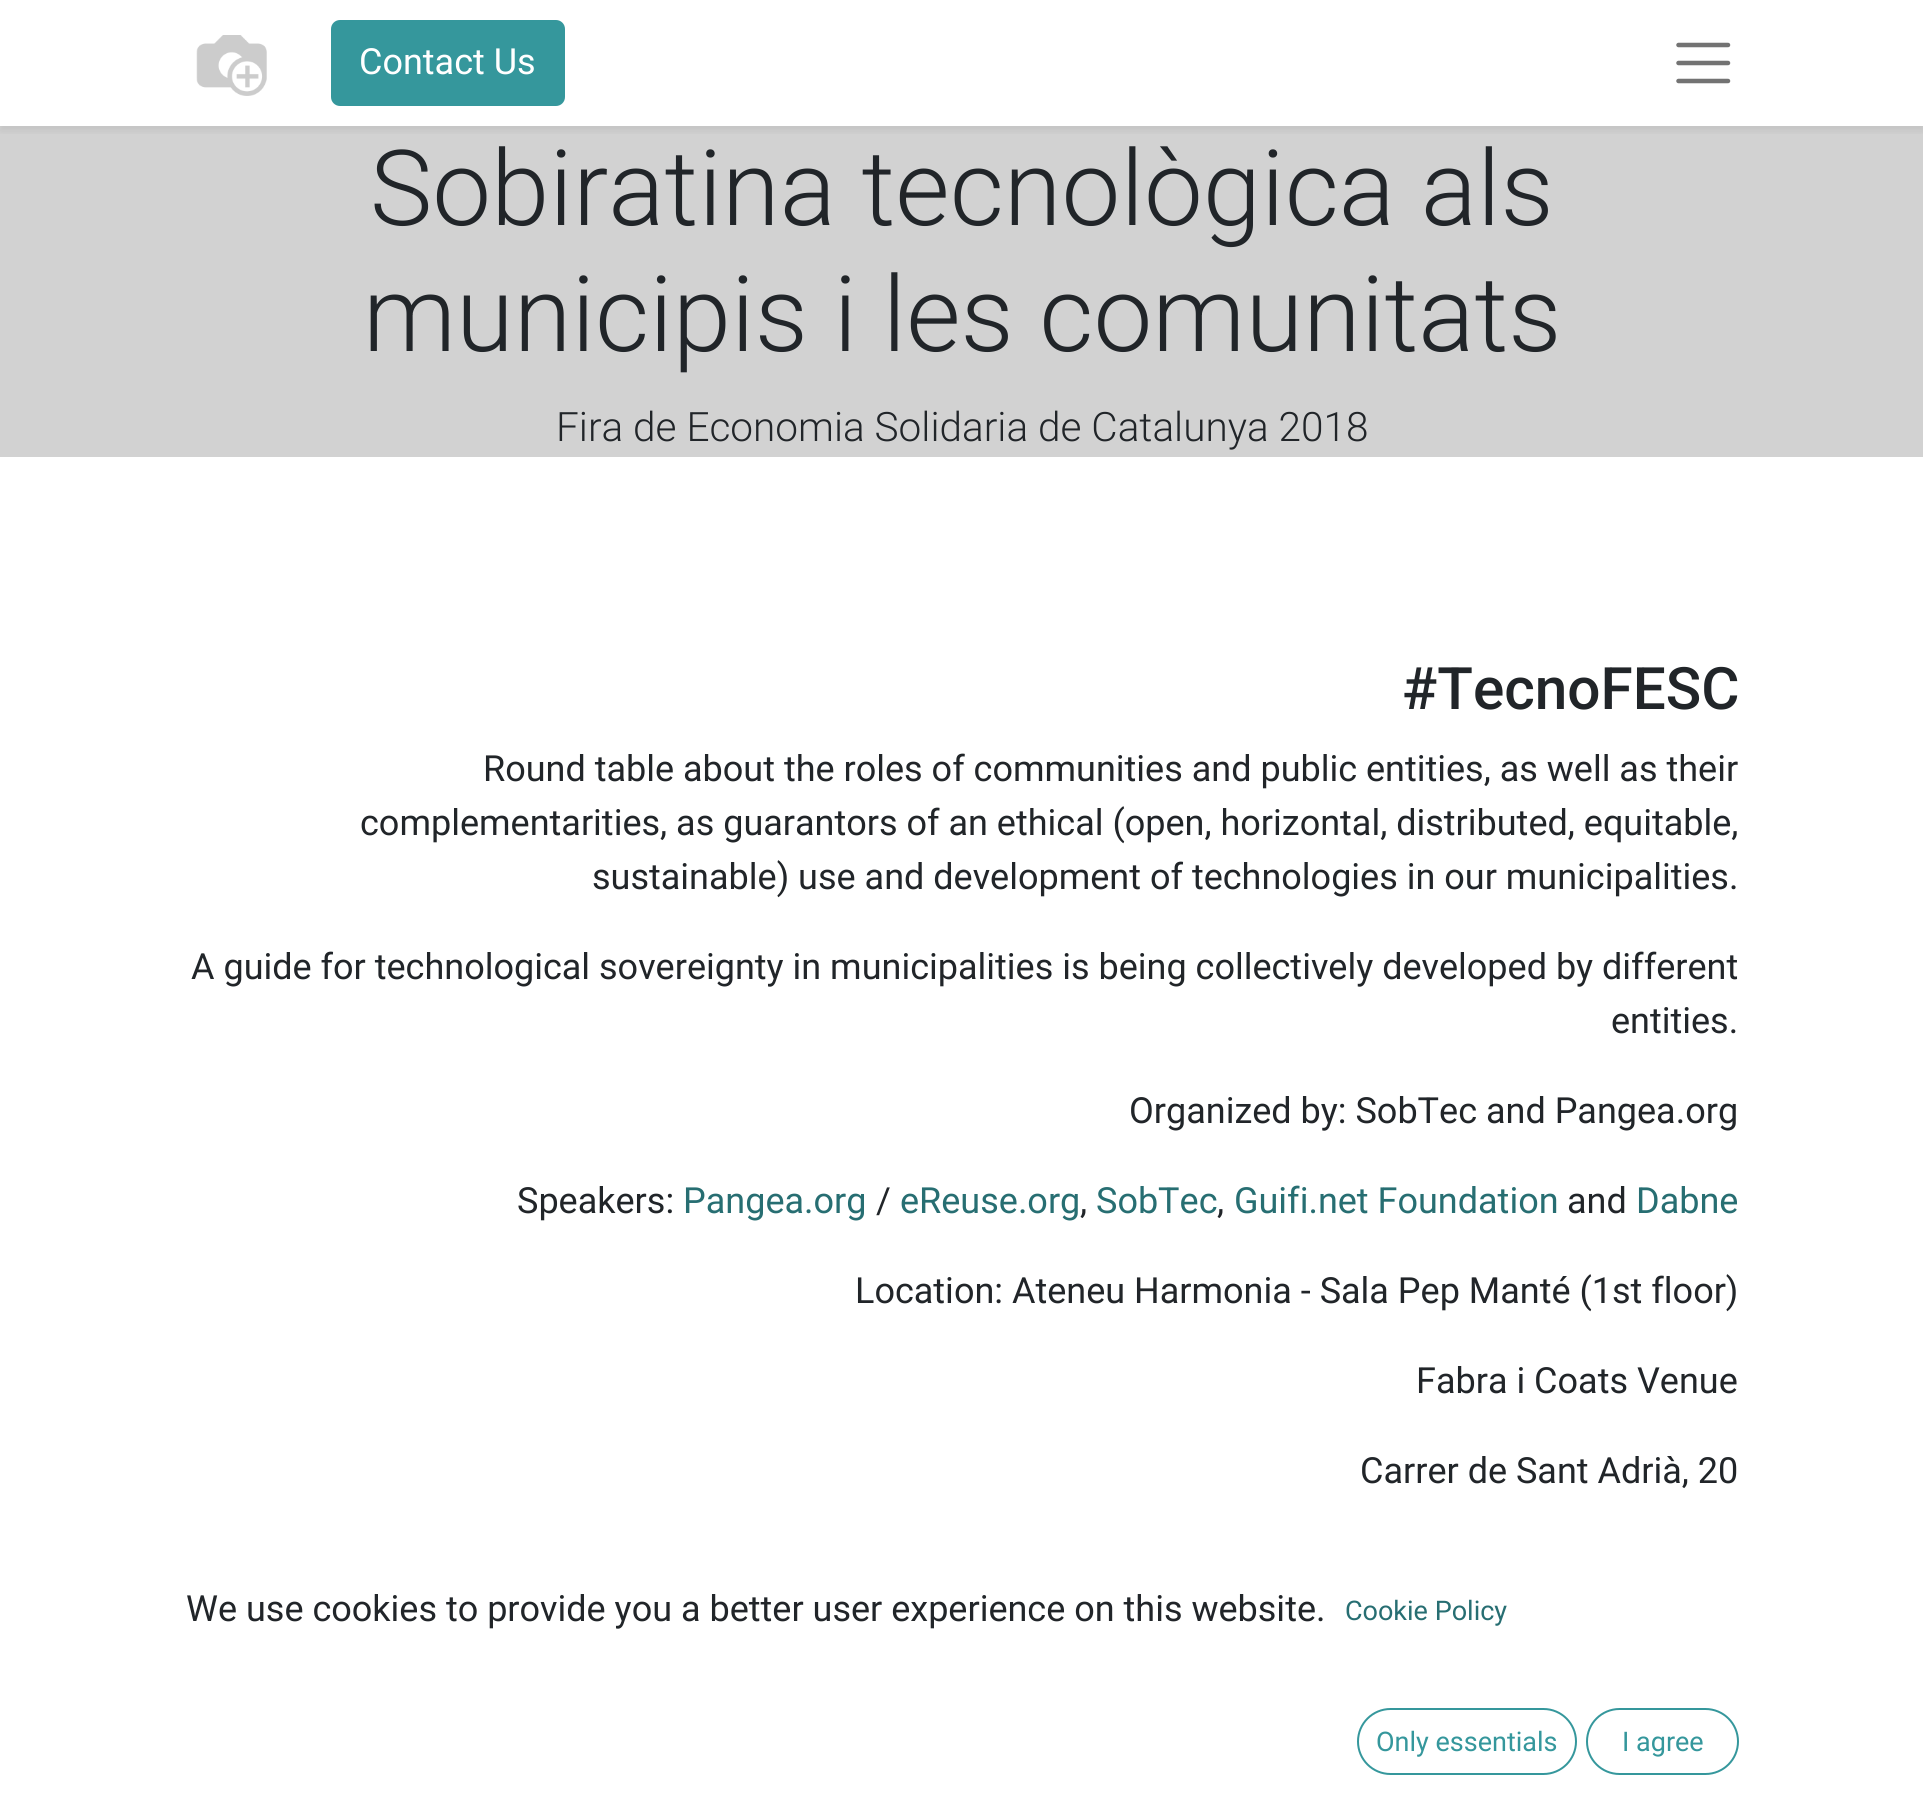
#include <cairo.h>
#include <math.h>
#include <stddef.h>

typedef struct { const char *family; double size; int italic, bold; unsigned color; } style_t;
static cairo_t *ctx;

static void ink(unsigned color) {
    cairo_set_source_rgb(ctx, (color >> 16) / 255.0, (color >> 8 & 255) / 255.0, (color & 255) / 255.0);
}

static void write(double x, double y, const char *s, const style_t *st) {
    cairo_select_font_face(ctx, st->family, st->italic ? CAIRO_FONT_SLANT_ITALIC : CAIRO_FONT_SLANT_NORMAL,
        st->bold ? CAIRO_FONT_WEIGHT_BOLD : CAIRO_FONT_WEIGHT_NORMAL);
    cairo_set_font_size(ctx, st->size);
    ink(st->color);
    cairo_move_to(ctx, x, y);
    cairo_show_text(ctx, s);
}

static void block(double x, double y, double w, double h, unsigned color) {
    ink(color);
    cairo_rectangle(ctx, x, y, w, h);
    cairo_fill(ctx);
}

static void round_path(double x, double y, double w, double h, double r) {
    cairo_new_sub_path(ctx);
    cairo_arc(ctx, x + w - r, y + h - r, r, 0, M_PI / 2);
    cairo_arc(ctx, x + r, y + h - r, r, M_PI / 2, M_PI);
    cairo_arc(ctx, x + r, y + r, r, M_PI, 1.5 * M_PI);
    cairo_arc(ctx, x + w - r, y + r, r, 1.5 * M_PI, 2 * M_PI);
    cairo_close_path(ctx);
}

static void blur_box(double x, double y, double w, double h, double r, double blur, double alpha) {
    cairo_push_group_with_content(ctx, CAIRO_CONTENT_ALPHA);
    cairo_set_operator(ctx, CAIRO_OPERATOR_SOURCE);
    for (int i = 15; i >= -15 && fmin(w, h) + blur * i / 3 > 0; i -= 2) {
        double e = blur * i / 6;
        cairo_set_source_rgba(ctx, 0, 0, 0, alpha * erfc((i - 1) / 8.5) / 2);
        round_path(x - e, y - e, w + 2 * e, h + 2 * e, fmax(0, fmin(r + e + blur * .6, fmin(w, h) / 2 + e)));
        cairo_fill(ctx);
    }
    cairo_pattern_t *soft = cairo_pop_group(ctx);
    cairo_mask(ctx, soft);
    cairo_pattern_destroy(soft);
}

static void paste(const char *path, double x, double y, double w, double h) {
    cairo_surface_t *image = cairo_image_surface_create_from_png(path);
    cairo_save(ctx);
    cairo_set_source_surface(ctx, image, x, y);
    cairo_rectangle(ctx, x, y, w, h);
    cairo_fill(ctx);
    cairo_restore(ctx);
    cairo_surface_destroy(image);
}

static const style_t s1 = {"Roboto", 36, 0, 0, 0xffffff};
static const style_t s2 = {"Roboto Light", 105, 0, 0, 0x212529};
static const style_t s3 = {"Roboto Light", 40.5, 0, 0, 0x212529};
static const style_t s4 = {"Roboto Medium", 58.5, 0, 0, 0x212529};
static const style_t s5 = {"Roboto", 36, 0, 0, 0x212529};
static const style_t s6 = {"Roboto", 36, 0, 0, 0x276e72};
static const style_t s7 = {"Roboto", 27, 0, 0, 0x276e72};
static const style_t s8 = {"Roboto", 27, 0, 0, 0x35979c};

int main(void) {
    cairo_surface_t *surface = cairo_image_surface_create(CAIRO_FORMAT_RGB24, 1923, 1811);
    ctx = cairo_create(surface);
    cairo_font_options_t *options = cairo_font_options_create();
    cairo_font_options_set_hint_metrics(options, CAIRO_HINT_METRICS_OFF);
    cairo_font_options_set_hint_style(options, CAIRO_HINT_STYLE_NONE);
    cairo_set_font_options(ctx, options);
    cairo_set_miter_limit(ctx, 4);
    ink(0xffffff);
    cairo_paint(ctx);
    block(0, 126, 1923, 331, 0xd2d2d2);
    cairo_save(ctx);
    cairo_rectangle(ctx, 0, 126, 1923, 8);
    cairo_clip(ctx);
    ink(0x000000);
    blur_box(0, 5, 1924, 126, 0, 4.5, 0.07);
    cairo_restore(ctx);
    paste("pic1.png", 196, 35, 71, 61);
    ink(0x35979c);
    round_path(332, 21, 232, 84, 8);
    cairo_fill_preserve(ctx);
    cairo_stroke(ctx);
    write(359, 74, "Contact Us", &s1);
    cairo_new_path(ctx);
    cairo_move_to(ctx, 1678.5, 45);
    cairo_line_to(ctx, 1728, 45);
    cairo_move_to(ctx, 1678.5, 63);
    cairo_line_to(ctx, 1728, 63);
    cairo_move_to(ctx, 1678.5, 81);
    cairo_line_to(ctx, 1728, 81);
    ink(0x737373);
    cairo_set_line_width(ctx, 4.5);
    cairo_set_line_cap(ctx, CAIRO_LINE_CAP_ROUND);
    cairo_stroke(ctx);
    write(370, 225, "Sobiratina tecnològica als", &s2);
    write(363, 351, "municipis i les comunitats", &s2);
    write(556, 441, "Fira de Economia Solidaria de Catalunya 2018", &s3);
    write(1402, 709, "#TecnoFESC", &s4);
    write(483, 781, "Round table about the roles of communities and public entities, as well as their", &s5);
    write(360, 835, "complementarities, as guarantors of an ethical (open, horizontal, distributed, equitable,", &s5);
    write(592, 889, "sustainable) use and development of technologies in our municipalities.", &s5);
    write(191, 979, "A guide for technological sovereignty in municipalities is being collectively developed by different", &s5);
    write(1611, 1033, "entities.", &s5);
    write(1129, 1123, "Organized by: SobTec and Pangea.org", &s5);
    write(517, 1213, "Speakers:", &s5);
    write(683, 1213, "Pangea.org", &s6);
    write(876, 1213, "/", &s5);
    write(900, 1213, "eReuse.org", &s6);
    write(1080, 1213, ",", &s5);
    write(1096, 1213, "SobTec", &s6);
    write(1217, 1213, ",", &s5);
    write(1234, 1213, "Guifi.net Foundation", &s6);
    write(1567, 1213, "and", &s5);
    write(1636, 1213, "Dabne", &s6);
    write(855, 1303, "Location: Ateneu Harmonia - Sala Pep Manté (1st floor)", &s5);
    write(1416, 1393, "Fabra i Coats Venue", &s5);
    write(1360, 1483, "Carrer de Sant Adrià, 20", &s5);
    write(186, 1621, "We use cookies to provide you a better user experience on this website.", &s5);
    write(1345, 1620, "Cookie Policy", &s7);
    round_path(1358, 1709, 218, 65, 32.5);
    ink(0x35979c);
    cairo_set_line_width(ctx, 2);
    cairo_set_line_cap(ctx, CAIRO_LINE_CAP_BUTT);
    cairo_stroke(ctx);
    write(1376, 1751, "Only essentials", &s8);
    round_path(1587, 1709, 151, 65, 32.5);
    cairo_stroke(ctx);
    write(1622, 1751, "I agree", &s8);
    cairo_surface_write_to_png(surface, "screenshot.png");
    cairo_font_options_destroy(options);
    cairo_destroy(ctx);
    cairo_surface_destroy(surface);
    return 0;
}
